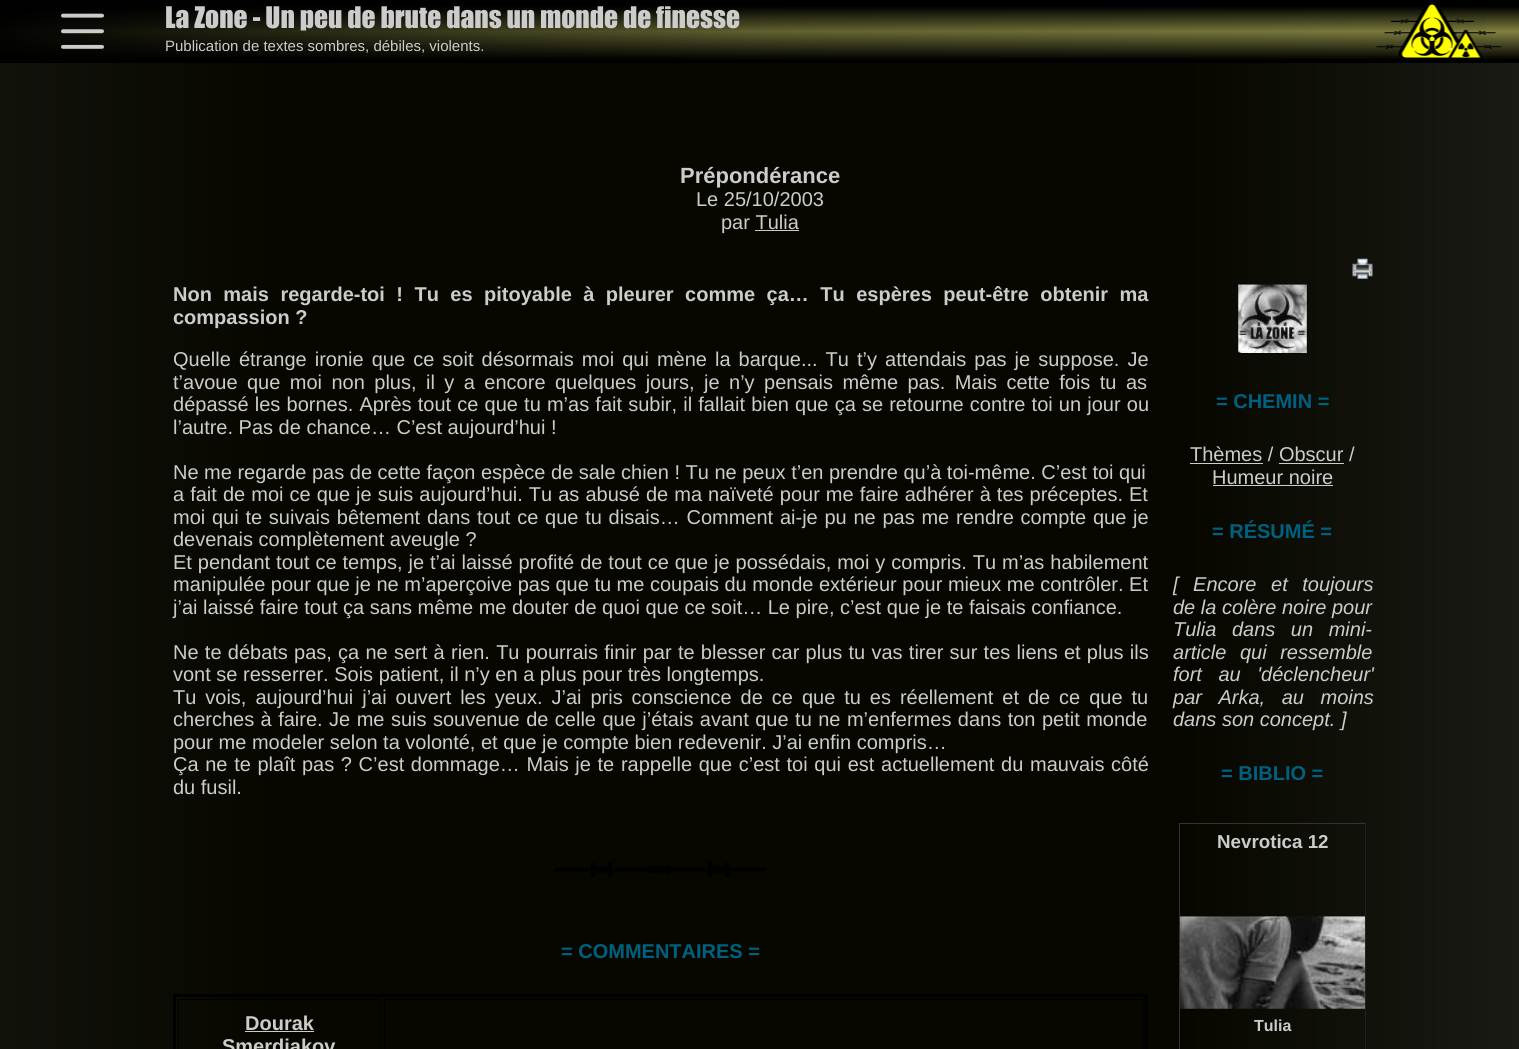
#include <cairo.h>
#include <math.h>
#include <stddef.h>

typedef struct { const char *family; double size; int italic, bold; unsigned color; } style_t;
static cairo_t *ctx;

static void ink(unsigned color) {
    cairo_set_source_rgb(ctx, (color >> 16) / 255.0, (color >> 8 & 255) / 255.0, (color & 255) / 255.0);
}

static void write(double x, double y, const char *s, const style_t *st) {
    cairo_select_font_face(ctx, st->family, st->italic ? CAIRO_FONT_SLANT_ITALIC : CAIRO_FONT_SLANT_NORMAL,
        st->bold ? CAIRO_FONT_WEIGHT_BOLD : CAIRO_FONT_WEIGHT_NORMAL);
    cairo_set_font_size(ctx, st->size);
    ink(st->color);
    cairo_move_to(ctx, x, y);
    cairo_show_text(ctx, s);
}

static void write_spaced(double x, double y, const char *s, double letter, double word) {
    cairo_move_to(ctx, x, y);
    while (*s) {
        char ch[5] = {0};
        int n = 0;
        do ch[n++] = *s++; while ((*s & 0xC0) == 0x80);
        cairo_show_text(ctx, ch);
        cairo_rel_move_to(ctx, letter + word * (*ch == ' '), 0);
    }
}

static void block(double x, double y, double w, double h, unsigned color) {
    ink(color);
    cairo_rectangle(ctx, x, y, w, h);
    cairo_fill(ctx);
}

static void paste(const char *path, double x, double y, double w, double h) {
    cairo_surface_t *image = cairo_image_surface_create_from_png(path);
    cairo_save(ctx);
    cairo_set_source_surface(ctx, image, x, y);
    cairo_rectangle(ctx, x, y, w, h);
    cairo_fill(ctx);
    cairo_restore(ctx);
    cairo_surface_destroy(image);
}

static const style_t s1 = {"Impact", 27.5, 0, 0, 0xcccccc};
static const style_t s2 = {"Liberation Sans", 15, 0, 0, 0xcccccc};
static const style_t s3 = {"Liberation Sans", 22, 0, 1, 0xcccccc};
static const style_t s4 = {"Liberation Sans", 20, 0, 0, 0xcccccc};
static const style_t s5 = {"Liberation Sans", 20, 0, 1, 0xcccccc};
static const style_t s6 = {"Liberation Sans", 20, 0, 1, 0x006080};
static const style_t s7 = {"Liberation Sans", 20, 1, 0, 0xcccccc};
static const style_t s8 = {"Liberation Sans", 18.75, 0, 1, 0xcccccc};
static const style_t s9 = {"Liberation Sans", 16, 0, 1, 0xcccccc};

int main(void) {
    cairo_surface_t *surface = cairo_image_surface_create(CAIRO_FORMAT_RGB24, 1519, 1049);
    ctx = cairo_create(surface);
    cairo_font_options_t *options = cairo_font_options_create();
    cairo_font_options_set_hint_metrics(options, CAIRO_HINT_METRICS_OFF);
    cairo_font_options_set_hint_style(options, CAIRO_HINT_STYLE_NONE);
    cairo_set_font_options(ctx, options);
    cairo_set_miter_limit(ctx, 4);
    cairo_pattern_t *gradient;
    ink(0xffffff);
    cairo_paint(ctx);
    gradient = cairo_pattern_create_linear(-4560, 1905, 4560, 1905);
    cairo_pattern_add_color_stop_rgba(gradient, 0, 0.8, 0.8, 0.8, 1);
    cairo_pattern_add_color_stop_rgba(gradient, 0.53, 0.027, 0.027, 0, 1);
    cairo_pattern_add_color_stop_rgba(gradient, 0.63, 0.027, 0.027, 0, 1);
    cairo_pattern_add_color_stop_rgba(gradient, 1, 0.8, 0.8, 0.8, 1);
    cairo_set_source(ctx, gradient);
    cairo_pattern_destroy(gradient);
    cairo_rectangle(ctx, 0, 63, 1519, 986);
    cairo_fill(ctx);
    gradient = cairo_pattern_create_linear(760, 0, 760, 63);
    cairo_pattern_add_color_stop_rgba(gradient, 0, 0, 0, 0, 1);
    cairo_pattern_add_color_stop_rgba(gradient, 0.1, 0, 0, 0, 1);
    cairo_pattern_add_color_stop_rgba(gradient, 0.5, 0.502, 0.502, 0.251, 1);
    cairo_pattern_add_color_stop_rgba(gradient, 0.95, 0, 0, 0, 1);
    cairo_pattern_add_color_stop_rgba(gradient, 1, 0, 0, 0, 1);
    cairo_set_source(ctx, gradient);
    cairo_pattern_destroy(gradient);
    cairo_rectangle(ctx, 0, 0, 1519, 63);
    cairo_fill(ctx);
    gradient = cairo_pattern_create_linear(364, -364, 1156, 427);
    cairo_pattern_add_color_stop_rgba(gradient, 0, 0, 0, 0, 1);
    cairo_pattern_add_color_stop_rgba(gradient, 0.5, 0, 0, 0, 0.25);
    cairo_pattern_add_color_stop_rgba(gradient, 1, 0, 0, 0, 0);
    cairo_set_source(ctx, gradient);
    cairo_pattern_destroy(gradient);
    cairo_rectangle(ctx, 0, 7, 1486, 52);
    cairo_fill(ctx);
    paste("pic1.png", 61, 13, 43, 36);
    write(165, 28, "La Zone - Un peu de brute dans un monde de finesse", &s1);
    write(165, 51, "Publication de textes sombres, débiles, violents.", &s2);
    paste("pic2.png", 1376, 4, 126, 55);
    write(680, 183, "Prépondérance", &s3);
    write(696, 206, "Le 25/10/2003", &s4);
    write(721, 229, "par Tulia", &s4);
    block(755, 230, 44, 1, 0xcccccc);
    cairo_select_font_face(ctx, "Liberation Sans", CAIRO_FONT_SLANT_NORMAL, CAIRO_FONT_WEIGHT_BOLD);
    write_spaced(173, 301, "Non mais regarde-toi ! Tu es pitoyable à pleurer comme ça… Tu espères peut-être obtenir ma", 0, 5.9);
    write(173, 324, "compassion ?", &s5);
    cairo_select_font_face(ctx, "Liberation Sans", CAIRO_FONT_SLANT_NORMAL, CAIRO_FONT_WEIGHT_NORMAL);
    write_spaced(173, 366, "Quelle étrange ironie que ce soit désormais moi qui mène la barque... Tu t’y attendais pas je suppose. Je", 0, 2.5);
    write_spaced(173, 389, "t’avoue que moi non plus, il y a encore quelques jours, je n’y pensais même pas. Mais cette fois tu as", 0, 3.9);
    write_spaced(173, 411, "dépassé les bornes. Après tout ce que tu m’as fait subir, il fallait bien que ça se retourne contre toi un jour ou", 0, 0.6);
    write(173, 434, "l’autre. Pas de chance… C’est aujourd’hui !", &s4);
    write(173, 479, "Ne me regarde pas de cette façon espèce de sale chien ! Tu ne peux t’en prendre qu’à toi-même. C’est toi qui", &s4);
    write_spaced(173, 501, "a fait de moi ce que je suis aujourd’hui. Tu as abusé de ma naïveté pour me faire adhérer à tes préceptes. Et", 0, 0.5);
    write_spaced(173, 524, "moi qui te suivais bêtement dans tout ce que tu disais… Comment ai-je pu ne pas me rendre compte que je", 0, 1.2);
    write(173, 546, "devenais complètement aveugle ?", &s4);
    write_spaced(173, 569, "Et pendant tout ce temps, je t’ai laissé profité de tout ce que je possédais, moi y compris. Tu m’as habilement", 0, 0.4);
    write(173, 591, "manipulée pour que je ne m’aperçoive pas que tu me coupais du monde extérieur pour mieux me contrôler. Et", &s4);
    write(173, 614, "j’ai laissé faire tout ça sans même me douter de quoi que ce soit… Le pire, c’est que je te faisais confiance.", &s4);
    write_spaced(173, 659, "Ne te débats pas, ça ne sert à rien. Tu pourrais finir par te blesser car plus tu vas tirer sur tes liens et plus ils", 0, 0.7);
    write(173, 681, "vont se resserrer. Sois patient, il n’y en a plus pour très longtemps.", &s4);
    write_spaced(173, 704, "Tu vois, aujourd’hui j’ai ouvert les yeux. J’ai pris conscience de ce que tu es réellement et de ce que tu", 0, 3.4);
    write_spaced(173, 726, "cherches à faire. Je me suis souvenue de celle que j’étais avant que tu ne m’enfermes dans ton petit monde", 0, 0.9);
    write(173, 749, "pour me modeler selon ta volonté, et que je compte bien redevenir. J’ai enfin compris…", &s4);
    write_spaced(173, 771, "Ça ne te plaît pas ? C’est dommage… Mais je te rappelle que c’est toi qui est actuellement du mauvais côté", 0, 1.1);
    write(173, 794, "du fusil.", &s4);
    paste("pic3.png", 553, 861, 214, 16);
    write(561, 958, "= COMMENTAIRES =", &s6);
    cairo_rectangle(ctx, 174.5, 995.5, 972, 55);
    ink(0x000000);
    cairo_set_line_width(ctx, 3);
    cairo_stroke(ctx);
    cairo_rectangle(ctx, 178.5, 999.5, 202, 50);
    cairo_set_line_width(ctx, 1);
    cairo_stroke(ctx);
    write(245, 1030, "Dourak", &s5);
    block(245, 1031, 69, 1, 0xcccccc);
    write(222, 1053, "Smerdiakov", &s5);
    cairo_rectangle(ctx, 384.5, 999.5, 758, 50);
    ink(0x000000);
    cairo_stroke(ctx);
    paste("pic4.png", 1352, 258, 21, 21);
    paste("pic5.png", 1237, 284, 71, 70);
    write(1216, 408, "= CHEMIN =", &s6);
    write(1190, 461, "Thèmes / Obscur /", &s4);
    block(1190, 463, 73, 1, 0xcccccc);
    block(1279, 463, 65, 1, 0xcccccc);
    write(1212, 484, "Humeur noire", &s4);
    block(1213, 485, 120, 1, 0xcccccc);
    write(1212, 538, "= RÉSUMÉ =", &s6);
    cairo_select_font_face(ctx, "Liberation Sans", CAIRO_FONT_SLANT_ITALIC, CAIRO_FONT_WEIGHT_NORMAL);
    ink(0xcccccc);
    write_spaced(1173, 591, "[ Encore et toujours", 0, 9);
    write(1173, 614, "de la colère noire pour", &s7);
    write_spaced(1173, 636, "Tulia dans un mini-", 0, 10);
    write_spaced(1173, 659, "article qui ressemble", 0, 8);
    write_spaced(1173, 681, "fort au 'déclencheur'", 0, 11);
    write_spaced(1173, 704, "par Arka, au moins", 0, 11);
    write(1173, 726, "dans son concept. ]", &s7);
    write(1221, 780, "= BIBLIO =", &s6);
    block(1179, 823, 187, 1, 0x333333);
    block(1365, 823, 1, 226, 0x222222);
    block(1179, 823, 1, 226, 0x333333);
    write(1217, 848, "Nevrotica 12", &s8);
    paste("pic6.png", 1180, 916, 185, 93);
    write(1254, 1031, "Tulia", &s9);
    cairo_surface_write_to_png(surface, "screenshot.png");
    cairo_font_options_destroy(options);
    cairo_destroy(ctx);
    cairo_surface_destroy(surface);
    return 0;
}
